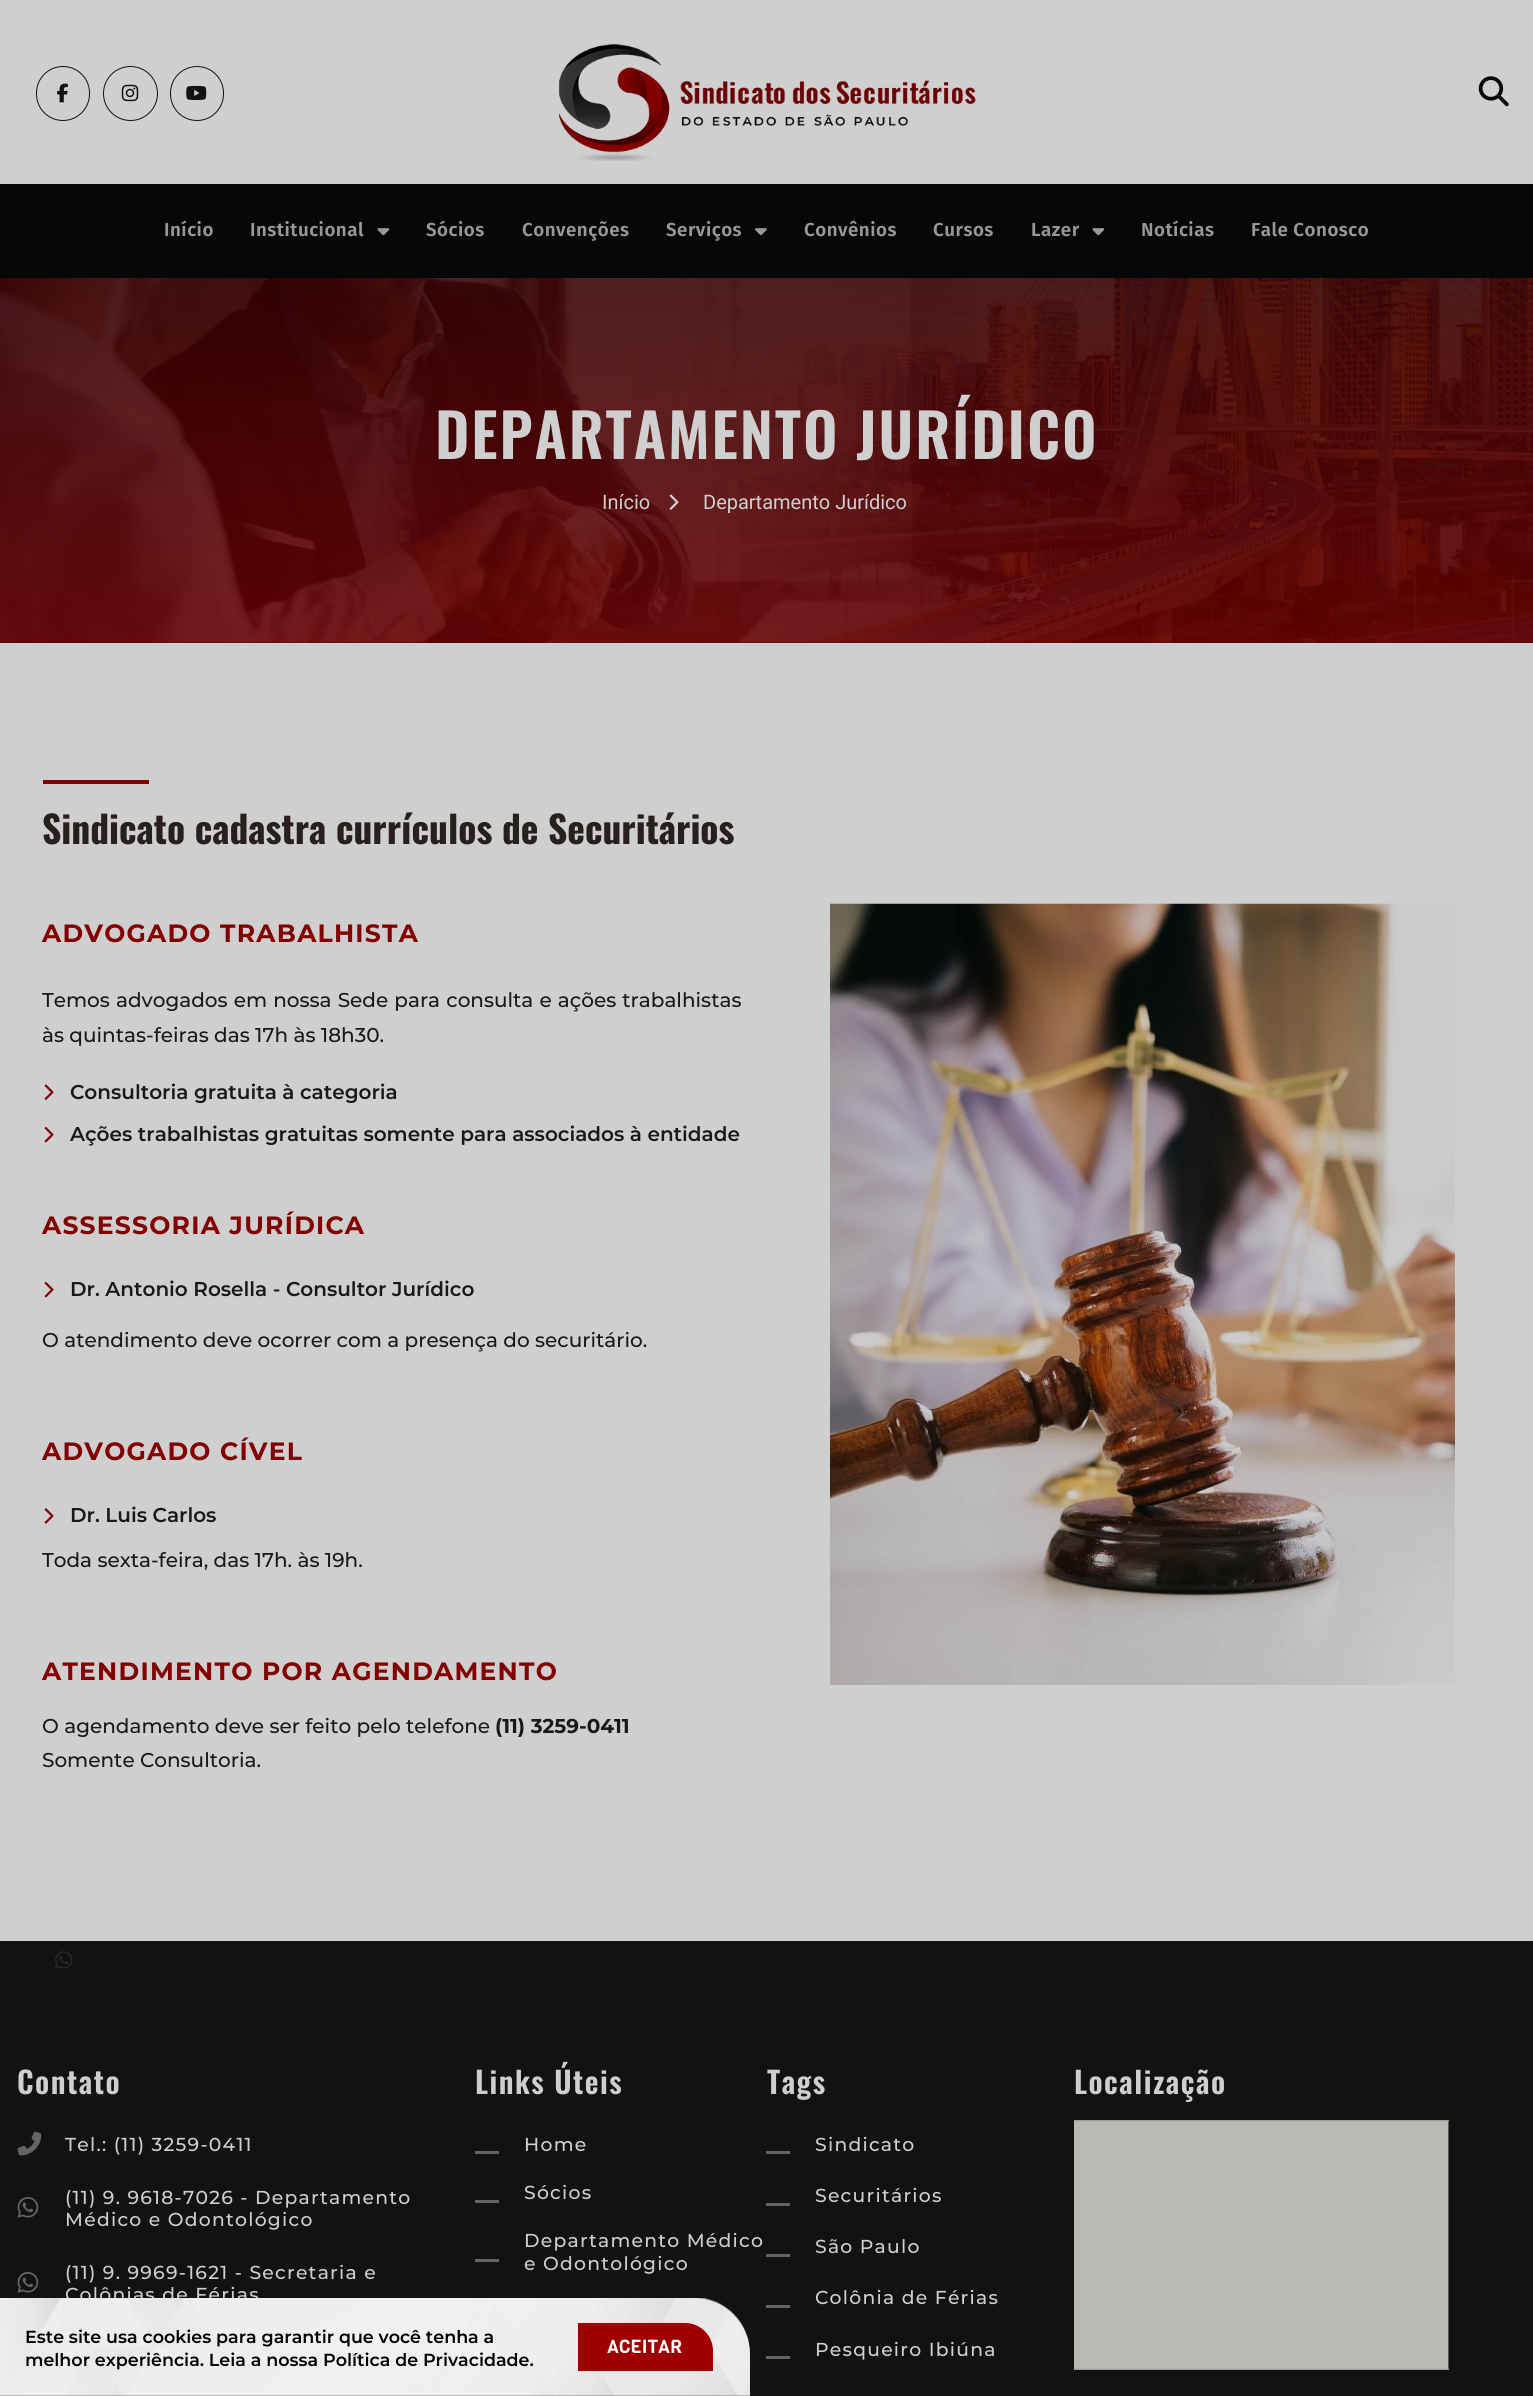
#include <cairo.h>
#include <math.h>
#include <stddef.h>

typedef struct { const char *family; double size; int italic, bold; unsigned color; } style_t;
static cairo_t *ctx;

static void ink(unsigned color) {
    cairo_set_source_rgb(ctx, (color >> 16) / 255.0, (color >> 8 & 255) / 255.0, (color & 255) / 255.0);
}

static void write(double x, double y, const char *s, const style_t *st) {
    cairo_select_font_face(ctx, st->family, st->italic ? CAIRO_FONT_SLANT_ITALIC : CAIRO_FONT_SLANT_NORMAL,
        st->bold ? CAIRO_FONT_WEIGHT_BOLD : CAIRO_FONT_WEIGHT_NORMAL);
    cairo_set_font_size(ctx, st->size);
    ink(st->color);
    cairo_move_to(ctx, x, y);
    cairo_show_text(ctx, s);
}

static void write_spaced(double x, double y, const char *s, double letter, double word) {
    cairo_move_to(ctx, x, y);
    while (*s) {
        char ch[5] = {0};
        int n = 0;
        do ch[n++] = *s++; while ((*s & 0xC0) == 0x80);
        cairo_show_text(ctx, ch);
        cairo_rel_move_to(ctx, letter + word * (*ch == ' '), 0);
    }
}

static void block(double x, double y, double w, double h, unsigned color) {
    ink(color);
    cairo_rectangle(ctx, x, y, w, h);
    cairo_fill(ctx);
}

static void round_path(double x, double y, double w, double h, double r) {
    cairo_new_sub_path(ctx);
    cairo_arc(ctx, x + w - r, y + h - r, r, 0, M_PI / 2);
    cairo_arc(ctx, x + r, y + h - r, r, M_PI / 2, M_PI);
    cairo_arc(ctx, x + r, y + r, r, M_PI, 1.5 * M_PI);
    cairo_arc(ctx, x + w - r, y + r, r, 1.5 * M_PI, 2 * M_PI);
    cairo_close_path(ctx);
}

static void paste(const char *path, double x, double y, double w, double h) {
    cairo_surface_t *image = cairo_image_surface_create_from_png(path);
    cairo_save(ctx);
    cairo_set_source_surface(ctx, image, x, y);
    cairo_rectangle(ctx, x, y, w, h);
    cairo_fill(ctx);
    cairo_restore(ctx);
    cairo_surface_destroy(image);
}

static const style_t s1 = {"Roboto", 20, 0, 0, 0xcfcfcf};
static const style_t s2 = {"Oswald", 37.5, 0, 1, 0x27201e};
static const style_t s3 = {"Montserrat Medium", 20, 0, 0, 0x18191a};
static const style_t s4 = {"Montserrat SemiBold", 20, 0, 0, 0x18191a};
static const style_t s5 = {"Montserrat", 20, 0, 1, 0x18191a};
static const style_t s6 = {"Montserrat SemiBold", 17.5, 0, 0, 0x000000};
static const style_t s7 = {"Viga", 18.75, 0, 0, 0xffffff};

int main(void) {
    cairo_surface_t *surface = cairo_image_surface_create(CAIRO_FORMAT_RGB24, 1533, 2396);
    ctx = cairo_create(surface);
    cairo_font_options_t *options = cairo_font_options_create();
    cairo_font_options_set_hint_metrics(options, CAIRO_HINT_METRICS_OFF);
    cairo_font_options_set_hint_style(options, CAIRO_HINT_STYLE_NONE);
    cairo_set_font_options(ctx, options);
    cairo_set_miter_limit(ctx, 4);
    cairo_pattern_t *gradient;
    ink(0xcfcfcf);
    cairo_paint(ctx);
    round_path(36.5, 66.5, 53, 54, 26.5);
    ink(0x121212);
    cairo_set_line_width(ctx, 1);
    cairo_stroke(ctx);
    paste("pic1.png", 57, 83, 11, 20);
    cairo_arc(ctx, 130.5, 93.5, 27, 0, 2 * M_PI);
    cairo_stroke(ctx);
    paste("pic2.png", 121, 84, 18, 18);
    round_path(170.5, 66.5, 53, 54, 26.5);
    cairo_stroke(ctx);
    paste("pic3.png", 186, 85, 21, 15);
    paste("pic4.png", 559, 44, 417, 117);
    paste("pic5.png", 1478, 76, 31, 31);
    block(0, 184, 1533, 94, 0x060708);
    cairo_select_font_face(ctx, "Fira Sans SemiBold", CAIRO_FONT_SLANT_NORMAL, CAIRO_FONT_WEIGHT_NORMAL);
    cairo_set_font_size(ctx, 18.75);
    ink(0x989899);
    write_spaced(164, 236, "Início", 0.5, 0);
    write_spaced(250, 236, "Institucional", 0.5, 0);
    paste("pic6.png", 377, 228, 13, 8);
    write_spaced(426, 236, "Sócios", 0.5, 0);
    write_spaced(522, 236, "Convenções", 0.5, 0);
    write_spaced(666, 236, "Serviços", 0.5, 0);
    paste("pic7.png", 755, 228, 12, 8);
    write_spaced(804, 236, "Convênios", 0.5, 0);
    write_spaced(933, 236, "Cursos", 0.5, 0);
    write_spaced(1031, 236, "Lazer", 0.5, 0);
    paste("pic6.png", 1092, 228, 13, 8);
    write_spaced(1141, 236, "Notícias", 0.5, 0);
    write_spaced(1251, 236, "Fale Conosco", 0.5, 0);
    block(0, 642, 1533, 1, 0x121212);
    paste("pic8.png", 0, 278, 1533, 365);
    gradient = cairo_pattern_create_linear(767, 643, 767, 278);
    cairo_pattern_add_color_stop_rgba(gradient, 0, 0.408, 0, 0, 0.85);
    cairo_pattern_add_color_stop_rgba(gradient, 1, 0.22, 0, 0.008, 0.85);
    cairo_set_source(ctx, gradient);
    cairo_pattern_destroy(gradient);
    cairo_rectangle(ctx, 0, 278, 1533, 365);
    cairo_fill(ctx);
    cairo_select_font_face(ctx, "Oswald SemiBold", CAIRO_FONT_SLANT_NORMAL, CAIRO_FONT_WEIGHT_NORMAL);
    cairo_set_font_size(ctx, 60);
    ink(0xcfcfcf);
    write_spaced(435, 459, "DEPARTAMENTO JURÍDICO", 1.9, 0);
    write(602, 509, "Início", &s1);
    paste("pic9.png", 669, 494, 10, 16);
    write(703, 509, "Departamento Jurídico", &s1);
    block(43, 780, 106, 4, 0x820000);
    write(42, 844, "Sindicato cadastra currículos de Securitários", &s2);
    cairo_select_font_face(ctx, "Montserrat", CAIRO_FONT_SLANT_NORMAL, CAIRO_FONT_WEIGHT_BOLD);
    cairo_set_font_size(ctx, 25);
    ink(0x820000);
    write_spaced(42, 942, "ADVOGADO TRABALHISTA", 1.25, 0);
    cairo_select_font_face(ctx, "Montserrat Medium", CAIRO_FONT_SLANT_NORMAL, CAIRO_FONT_WEIGHT_NORMAL);
    cairo_set_font_size(ctx, 20);
    ink(0x18191a);
    write_spaced(42, 1007, "Temos advogados em nossa Sede para consulta e ações trabalhistas", 0, 0.75);
    write(42, 1042, "às quintas-feiras das 17h às 18h30.", &s3);
    paste("pic10.png", 44, 1084, 10, 16);
    write(70, 1099, "Consultoria gratuita à categoria", &s4);
    paste("pic11.png", 44, 1127, 10, 16);
    write(70, 1141, "Ações trabalhistas gratuitas somente para associados à entidade", &s4);
    cairo_select_font_face(ctx, "Montserrat", CAIRO_FONT_SLANT_NORMAL, CAIRO_FONT_WEIGHT_BOLD);
    cairo_set_font_size(ctx, 25);
    ink(0x820000);
    write_spaced(42, 1234, "ASSESSORIA JURÍDICA", 1.25, 0);
    paste("pic11.png", 44, 1282, 10, 16);
    write(70, 1296, "Dr. Antonio Rosella - Consultor Jurídico", &s4);
    write(42, 1347, "O atendimento deve ocorrer com a presença do securitário.", &s3);
    cairo_select_font_face(ctx, "Montserrat", CAIRO_FONT_SLANT_NORMAL, CAIRO_FONT_WEIGHT_BOLD);
    cairo_set_font_size(ctx, 25);
    ink(0x820000);
    write_spaced(42, 1460, "ADVOGADO CÍVEL", 1.25, 0);
    paste("pic12.png", 44, 1508, 10, 16);
    write(70, 1522, "Dr. Luis Carlos", &s4);
    write(42, 1567, "Toda sexta-feira, das 17h. às 19h.", &s3);
    cairo_select_font_face(ctx, "Montserrat", CAIRO_FONT_SLANT_NORMAL, CAIRO_FONT_WEIGHT_BOLD);
    cairo_set_font_size(ctx, 25);
    ink(0x820000);
    write_spaced(42, 1680, "ATENDIMENTO POR AGENDAMENTO", 1.25, 0);
    write(42, 1733, "O agendamento deve ser feito pelo telefone", &s3);
    write(495, 1733, "(11) 3259-0411", &s5);
    write(42, 1767, "Somente Consultoria.", &s3);
    paste("pic13.png", 830, 903, 625, 782);
    block(0, 1941, 1533, 455, 0x121212);
    paste("pic14.png", 55, 1951, 18, 18);
    cairo_select_font_face(ctx, "Oswald SemiBold", CAIRO_FONT_SLANT_NORMAL, CAIRO_FONT_WEIGHT_NORMAL);
    cairo_set_font_size(ctx, 30);
    ink(0xcfcfcf);
    write_spaced(17, 2094, "Contato", 1.5, 0);
    paste("pic15.png", 17, 2131, 25, 25);
    cairo_select_font_face(ctx, "Montserrat Medium", CAIRO_FONT_SLANT_NORMAL, CAIRO_FONT_WEIGHT_NORMAL);
    cairo_set_font_size(ctx, 18.75);
    write_spaced(65, 2151, "Tel.: (11) 3259-0411", 1.25, 0);
    paste("pic16.png", 17, 2197, 22, 21);
    write_spaced(65, 2204, "(11) 9. 9618-7026 - Departamento", 1.25, 0);
    write_spaced(65, 2226, "Médico e Odontológico", 1.25, 0);
    paste("pic16.png", 17, 2272, 22, 21);
    write_spaced(65, 2279, "(11) 9. 9969-1621 - Secretaria e", 1.25, 0);
    write_spaced(65, 2301, "Colônias de Férias", 1.25, 0);
    cairo_select_font_face(ctx, "Oswald SemiBold", CAIRO_FONT_SLANT_NORMAL, CAIRO_FONT_WEIGHT_NORMAL);
    cairo_set_font_size(ctx, 30);
    write_spaced(475, 2094, "Links Úteis", 1.5, 0);
    cairo_select_font_face(ctx, "Montserrat Medium", CAIRO_FONT_SLANT_NORMAL, CAIRO_FONT_WEIGHT_NORMAL);
    cairo_set_font_size(ctx, 18.75);
    write_spaced(524, 2151, "Home", 1.25, 0);
    block(475, 2151, 24, 3, 0x646464);
    ink(0xcfcfcf);
    write_spaced(524, 2199, "Sócios", 1.25, 0);
    block(475, 2200, 24, 3, 0x646464);
    block(475, 2259, 24, 3, 0x646464);
    ink(0xcfcfcf);
    write_spaced(524, 2247, "Departamento Médico", 1.25, 0);
    write_spaced(524, 2270, "e Odontológico", 1.25, 0);
    cairo_select_font_face(ctx, "Oswald SemiBold", CAIRO_FONT_SLANT_NORMAL, CAIRO_FONT_WEIGHT_NORMAL);
    cairo_set_font_size(ctx, 30);
    write_spaced(767, 2094, "Tags", 1.5, 0);
    cairo_select_font_face(ctx, "Montserrat Medium", CAIRO_FONT_SLANT_NORMAL, CAIRO_FONT_WEIGHT_NORMAL);
    cairo_set_font_size(ctx, 18.75);
    write_spaced(815, 2151, "Sindicato", 1.25, 0);
    block(766, 2151, 24, 3, 0x646464);
    ink(0xcfcfcf);
    write_spaced(815, 2202, "Securitários", 1.25, 0);
    block(766, 2203, 24, 3, 0x646464);
    ink(0xcfcfcf);
    write_spaced(815, 2253, "São Paulo", 1.25, 0);
    block(766, 2254, 24, 3, 0x646464);
    ink(0xcfcfcf);
    write_spaced(815, 2304, "Colônia de Férias", 1.25, 0);
    block(766, 2305, 24, 3, 0x646464);
    block(766, 2356, 24, 3, 0x646464);
    ink(0xcfcfcf);
    write_spaced(815, 2356, "Pesqueiro Ibiúna", 1.25, 0);
    cairo_select_font_face(ctx, "Oswald SemiBold", CAIRO_FONT_SLANT_NORMAL, CAIRO_FONT_WEIGHT_NORMAL);
    cairo_set_font_size(ctx, 30);
    write_spaced(1074, 2094, "Localização", 1.5, 0);
    paste("pic17.png", 1074, 2120, 375, 250);
    paste("pic18.png", 0, 2298, 750, 98);
    write(25, 2343, "Este site usa cookies para garantir que você tenha a", &s6);
    write(25, 2366, "melhor experiência. Leia a nossa Política de Privacidade.", &s6);
    ink(0xa00000);
    cairo_new_path(ctx);
    cairo_move_to(ctx, 578, 2323);
    cairo_line_to(ctx, 685, 2323);
    cairo_curve_to(ctx, 700.5, 2323, 713, 2335.5, 713, 2351);
    cairo_line_to(ctx, 713, 2371);
    cairo_line_to(ctx, 578, 2371);
    cairo_close_path(ctx);
    cairo_fill(ctx);
    write(607, 2353, "ACEITAR", &s7);
    cairo_surface_write_to_png(surface, "screenshot.png");
    cairo_font_options_destroy(options);
    cairo_destroy(ctx);
    cairo_surface_destroy(surface);
    return 0;
}
